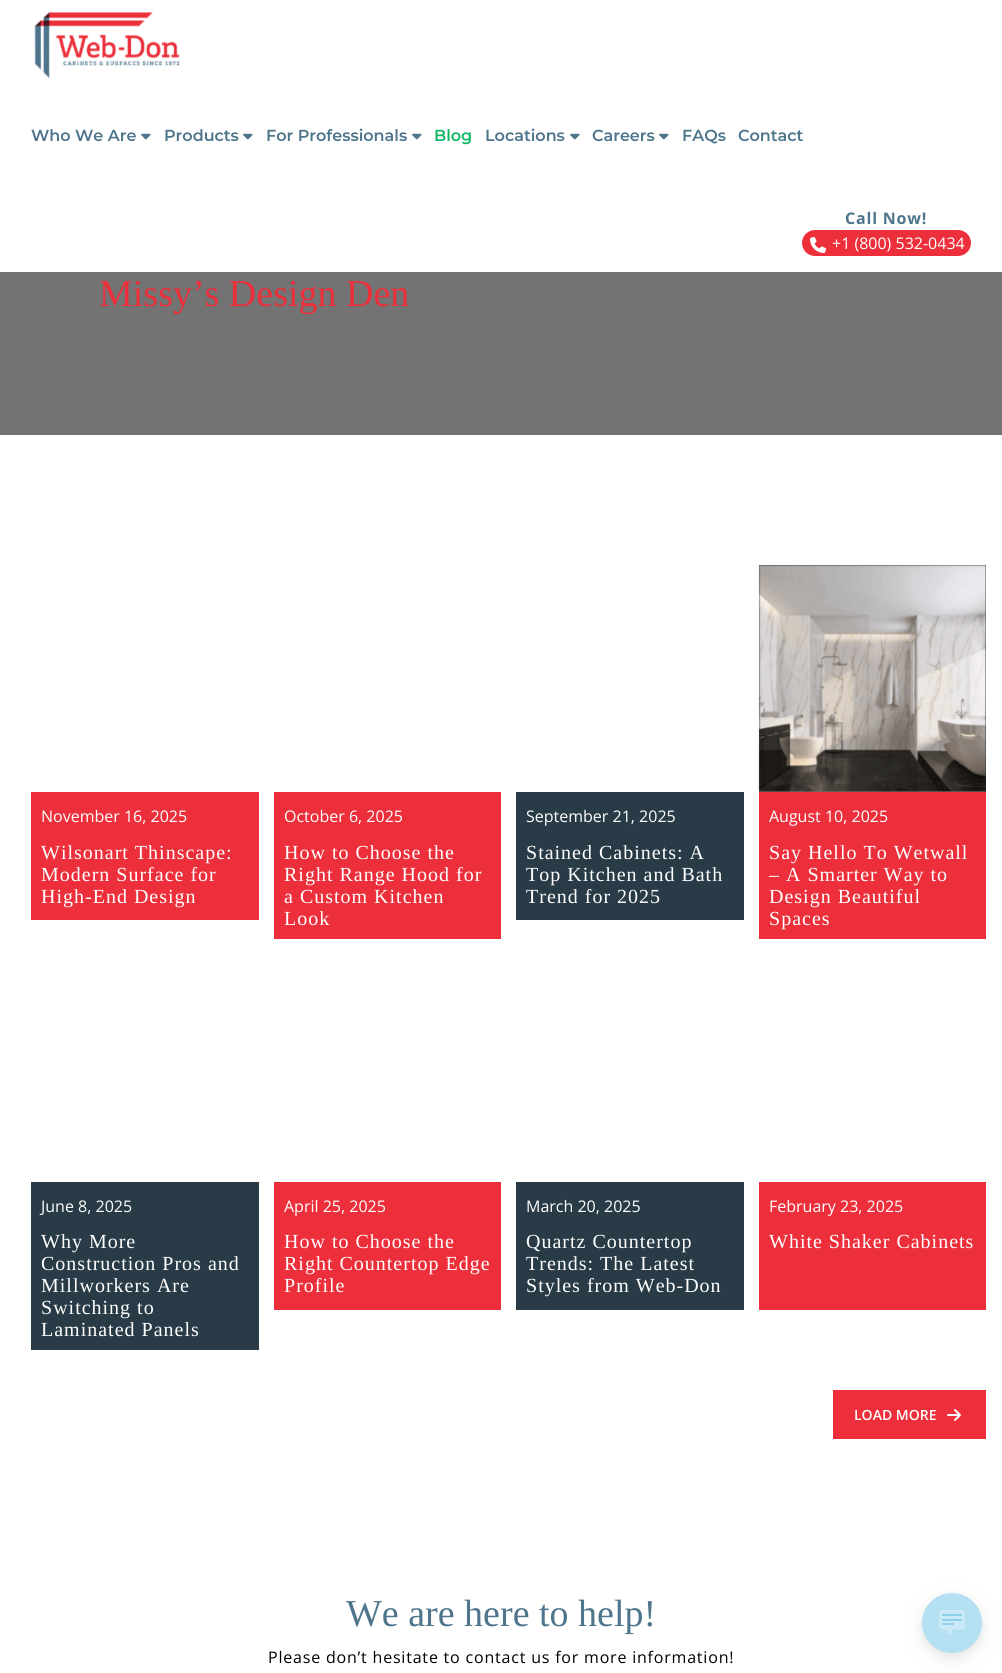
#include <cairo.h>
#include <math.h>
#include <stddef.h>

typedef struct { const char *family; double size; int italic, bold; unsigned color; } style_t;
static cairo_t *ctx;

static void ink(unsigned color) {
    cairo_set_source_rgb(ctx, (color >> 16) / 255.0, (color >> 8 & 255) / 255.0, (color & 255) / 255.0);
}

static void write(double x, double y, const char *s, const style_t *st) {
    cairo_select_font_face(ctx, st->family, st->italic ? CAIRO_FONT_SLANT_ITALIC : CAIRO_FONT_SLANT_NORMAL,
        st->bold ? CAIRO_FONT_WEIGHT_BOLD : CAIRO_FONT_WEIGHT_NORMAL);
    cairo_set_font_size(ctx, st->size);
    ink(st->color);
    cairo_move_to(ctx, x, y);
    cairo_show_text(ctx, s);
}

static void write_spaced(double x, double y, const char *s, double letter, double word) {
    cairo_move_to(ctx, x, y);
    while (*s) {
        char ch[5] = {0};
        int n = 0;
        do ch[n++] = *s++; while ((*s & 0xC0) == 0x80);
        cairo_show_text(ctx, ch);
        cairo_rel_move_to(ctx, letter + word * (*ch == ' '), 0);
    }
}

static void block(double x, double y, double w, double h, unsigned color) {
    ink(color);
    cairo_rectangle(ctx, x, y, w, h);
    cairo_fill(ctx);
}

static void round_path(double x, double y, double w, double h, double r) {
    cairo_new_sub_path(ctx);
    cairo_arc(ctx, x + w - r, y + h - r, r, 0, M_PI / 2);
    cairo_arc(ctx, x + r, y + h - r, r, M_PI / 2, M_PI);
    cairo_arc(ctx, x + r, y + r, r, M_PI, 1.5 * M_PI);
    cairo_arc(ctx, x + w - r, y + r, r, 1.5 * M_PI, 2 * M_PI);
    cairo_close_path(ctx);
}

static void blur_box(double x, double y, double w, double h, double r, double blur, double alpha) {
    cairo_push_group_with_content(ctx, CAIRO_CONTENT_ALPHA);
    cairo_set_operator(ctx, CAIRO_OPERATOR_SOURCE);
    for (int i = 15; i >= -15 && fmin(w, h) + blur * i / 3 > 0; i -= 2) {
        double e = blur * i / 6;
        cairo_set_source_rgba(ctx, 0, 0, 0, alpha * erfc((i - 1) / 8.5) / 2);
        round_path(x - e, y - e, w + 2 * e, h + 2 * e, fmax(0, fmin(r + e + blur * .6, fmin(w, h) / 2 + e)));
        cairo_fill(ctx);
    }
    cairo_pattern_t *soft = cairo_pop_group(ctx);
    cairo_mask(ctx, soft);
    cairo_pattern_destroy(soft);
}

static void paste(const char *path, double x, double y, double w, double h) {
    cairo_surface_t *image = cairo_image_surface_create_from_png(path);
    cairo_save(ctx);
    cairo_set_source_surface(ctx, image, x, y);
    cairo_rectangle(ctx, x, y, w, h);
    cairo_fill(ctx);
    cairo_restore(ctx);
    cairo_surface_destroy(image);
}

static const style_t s1 = {"Montserrat SemiBold", 16, 0, 0, 0x4e758c};
static const style_t s2 = {"Montserrat SemiBold", 16, 0, 0, 0x10b765};
static const style_t s3 = {"Open Sans", 16, 0, 0, 0xffffff};
static const style_t s4 = {"Liberation Serif", 38, 0, 0, 0xec2f3a};
static const style_t s5 = {"Open Sans SemiBold", 14, 0, 0, 0xffffff};
static const style_t s6 = {"Liberation Serif", 38, 0, 0, 0x4e758c};

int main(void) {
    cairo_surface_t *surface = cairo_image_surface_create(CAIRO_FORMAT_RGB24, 1002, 1673);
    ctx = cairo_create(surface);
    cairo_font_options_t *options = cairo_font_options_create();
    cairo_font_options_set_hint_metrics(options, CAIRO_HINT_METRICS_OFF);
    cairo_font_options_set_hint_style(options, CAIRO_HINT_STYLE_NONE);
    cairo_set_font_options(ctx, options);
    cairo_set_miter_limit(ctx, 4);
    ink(0xffffff);
    cairo_paint(ctx);
    paste("pic1.png", 34, 12, 146, 67);
    write(31, 141, "Who We Are", &s1);
    paste("pic2.png", 141, 133, 10, 7);
    write(164, 141, "Products", &s1);
    paste("pic2.png", 243, 133, 10, 7);
    write(266, 141, "For Professionals", &s1);
    paste("pic2.png", 412, 133, 10, 7);
    write(434, 141, "Blog", &s2);
    write(485, 141, "Locations", &s1);
    paste("pic2.png", 570, 133, 10, 7);
    write(592, 141, "Careers", &s1);
    paste("pic2.png", 659, 133, 10, 7);
    write(682, 141, "FAQs", &s1);
    write(738, 141, "Contact", &s1);
    cairo_select_font_face(ctx, "Open Sans", CAIRO_FONT_SLANT_NORMAL, CAIRO_FONT_WEIGHT_BOLD);
    write_spaced(845, 224, "Call Now!", 0.8, 0);
    ink(0xec2f3a);
    round_path(802, 230, 169, 26, 13);
    cairo_fill(ctx);
    paste("pic3.png", 810, 237, 16, 16);
    write(832, 249, "+1 (800) 532-0434", &s3);
    block(0, 272, 1002, 163, 0x737373);
    write(99, 306, "Missy’s Design Den", &s4);
    block(31, 792, 228, 128, 0xec2f3a);
    write(41, 822, "November 16, 2025", &s3);
    cairo_select_font_face(ctx, "Liberation Serif", CAIRO_FONT_SLANT_NORMAL, CAIRO_FONT_WEIGHT_NORMAL);
    cairo_set_font_size(ctx, 20);
    write_spaced(41, 859, "Wilsonart Thinscape:", 1, 0);
    write_spaced(41, 881, "Modern Surface for", 1, 0);
    write_spaced(41, 903, "High-End Design", 1, 0);
    block(274, 792, 227, 147, 0xec2f3a);
    write(284, 822, "October 6, 2025", &s3);
    cairo_select_font_face(ctx, "Liberation Serif", CAIRO_FONT_SLANT_NORMAL, CAIRO_FONT_WEIGHT_NORMAL);
    cairo_set_font_size(ctx, 20);
    write_spaced(284, 859, "How to Choose the", 1, 0);
    write_spaced(284, 881, "Right Range Hood for", 1, 0);
    write_spaced(284, 903, "a Custom Kitchen", 1, 0);
    write_spaced(284, 925, "Look", 1, 0);
    block(516, 792, 228, 128, 0x283b46);
    write(526, 822, "September 21, 2025", &s3);
    cairo_select_font_face(ctx, "Liberation Serif", CAIRO_FONT_SLANT_NORMAL, CAIRO_FONT_WEIGHT_NORMAL);
    cairo_set_font_size(ctx, 20);
    write_spaced(526, 859, "Stained Cabinets: A", 1, 0);
    write_spaced(526, 881, "Top Kitchen and Bath", 1, 0);
    write_spaced(526, 903, "Trend for 2025", 1, 0);
    paste("pic4.png", 758, 564, 228, 228);
    block(759, 792, 227, 147, 0xec2f3a);
    write(769, 822, "August 10, 2025", &s3);
    cairo_select_font_face(ctx, "Liberation Serif", CAIRO_FONT_SLANT_NORMAL, CAIRO_FONT_WEIGHT_NORMAL);
    cairo_set_font_size(ctx, 20);
    write_spaced(769, 859, "Say Hello To Wetwall", 1, 0);
    write_spaced(769, 881, "– A Smarter Way to", 1, 0);
    write_spaced(769, 903, "Design Beautiful", 1, 0);
    write_spaced(769, 925, "Spaces", 1, 0);
    block(31, 1182, 228, 168, 0x283b46);
    write(41, 1212, "June 8, 2025", &s3);
    cairo_select_font_face(ctx, "Liberation Serif", CAIRO_FONT_SLANT_NORMAL, CAIRO_FONT_WEIGHT_NORMAL);
    cairo_set_font_size(ctx, 20);
    write_spaced(41, 1248, "Why More", 1, 0);
    write_spaced(41, 1270, "Construction Pros and", 1, 0);
    write_spaced(41, 1292, "Millworkers Are", 1, 0);
    write_spaced(41, 1314, "Switching to", 1, 0);
    write_spaced(41, 1336, "Laminated Panels", 1, 0);
    block(274, 1182, 227, 128, 0xec2f3a);
    write(284, 1212, "April 25, 2025", &s3);
    cairo_select_font_face(ctx, "Liberation Serif", CAIRO_FONT_SLANT_NORMAL, CAIRO_FONT_WEIGHT_NORMAL);
    cairo_set_font_size(ctx, 20);
    write_spaced(284, 1248, "How to Choose the", 1, 0);
    write_spaced(284, 1270, "Right Countertop Edge", 1, 0);
    write_spaced(284, 1292, "Profile", 1, 0);
    block(516, 1182, 228, 128, 0x283b46);
    write(526, 1212, "March 20, 2025", &s3);
    cairo_select_font_face(ctx, "Liberation Serif", CAIRO_FONT_SLANT_NORMAL, CAIRO_FONT_WEIGHT_NORMAL);
    cairo_set_font_size(ctx, 20);
    write_spaced(526, 1248, "Quartz Countertop", 1, 0);
    write_spaced(526, 1270, "Trends: The Latest", 1, 0);
    write_spaced(526, 1292, "Styles from Web-Don", 1, 0);
    block(759, 1182, 227, 128, 0xec2f3a);
    write(769, 1212, "February 23, 2025", &s3);
    cairo_select_font_face(ctx, "Liberation Serif", CAIRO_FONT_SLANT_NORMAL, CAIRO_FONT_WEIGHT_NORMAL);
    cairo_set_font_size(ctx, 20);
    write_spaced(769, 1248, "White Shaker Cabinets", 1, 0);
    block(833, 1390, 153, 49, 0xec2f3a);
    write(854, 1420, "LOAD MORE", &s5);
    paste("pic5.png", 947, 1409, 14, 12);
    write(346, 1626, "We are here to help!", &s6);
    cairo_select_font_face(ctx, "Open Sans", CAIRO_FONT_SLANT_NORMAL, CAIRO_FONT_WEIGHT_NORMAL);
    cairo_set_font_size(ctx, 16);
    ink(0x000000);
    write_spaced(268, 1663, "Please don’t hesitate to contact us for more information!", 0.8, 0);
    ink(0xb3b3b3);
    blur_box(922, 1599, 60, 60, 30, 10, 0.19);
    blur_box(922, 1597, 60, 60, 30, 4, 0.2);
    ink(0xb4e0f2);
    cairo_arc(ctx, 952, 1623, 30, 0, 2 * M_PI);
    cairo_fill(ctx);
    paste("pic6.png", 939, 1610, 26, 26);
    cairo_surface_write_to_png(surface, "screenshot.png");
    cairo_font_options_destroy(options);
    cairo_destroy(ctx);
    cairo_surface_destroy(surface);
    return 0;
}
